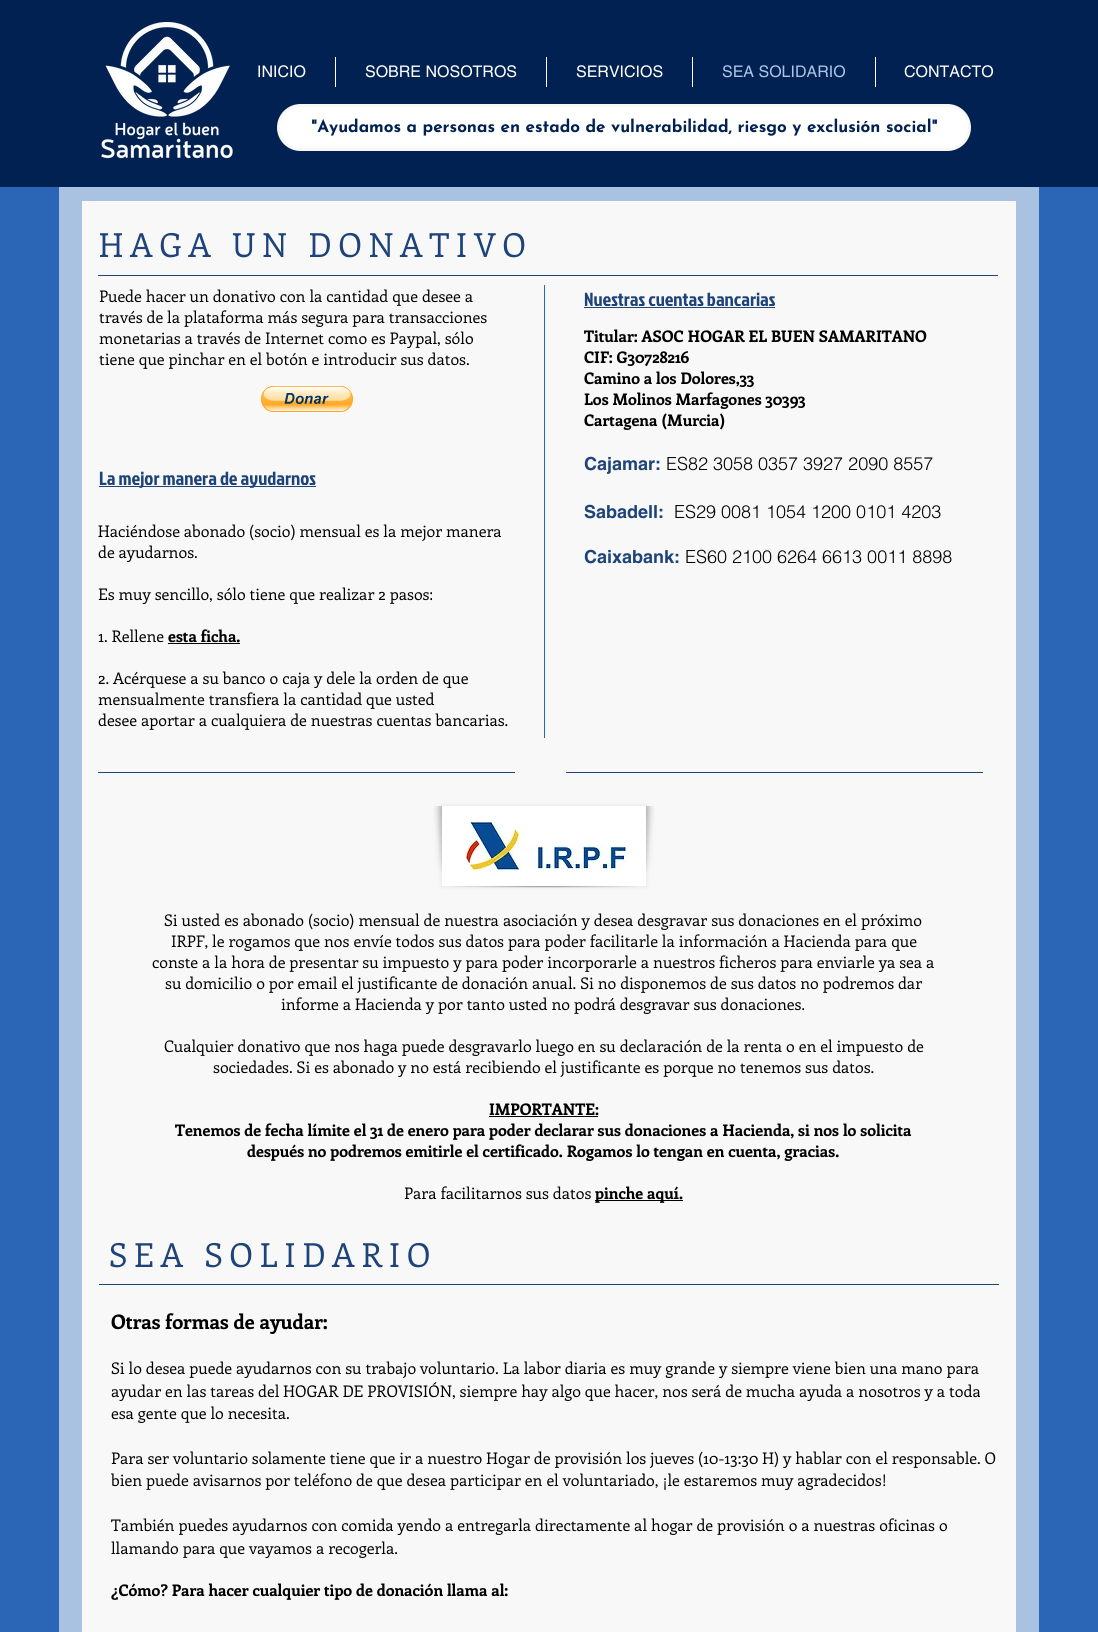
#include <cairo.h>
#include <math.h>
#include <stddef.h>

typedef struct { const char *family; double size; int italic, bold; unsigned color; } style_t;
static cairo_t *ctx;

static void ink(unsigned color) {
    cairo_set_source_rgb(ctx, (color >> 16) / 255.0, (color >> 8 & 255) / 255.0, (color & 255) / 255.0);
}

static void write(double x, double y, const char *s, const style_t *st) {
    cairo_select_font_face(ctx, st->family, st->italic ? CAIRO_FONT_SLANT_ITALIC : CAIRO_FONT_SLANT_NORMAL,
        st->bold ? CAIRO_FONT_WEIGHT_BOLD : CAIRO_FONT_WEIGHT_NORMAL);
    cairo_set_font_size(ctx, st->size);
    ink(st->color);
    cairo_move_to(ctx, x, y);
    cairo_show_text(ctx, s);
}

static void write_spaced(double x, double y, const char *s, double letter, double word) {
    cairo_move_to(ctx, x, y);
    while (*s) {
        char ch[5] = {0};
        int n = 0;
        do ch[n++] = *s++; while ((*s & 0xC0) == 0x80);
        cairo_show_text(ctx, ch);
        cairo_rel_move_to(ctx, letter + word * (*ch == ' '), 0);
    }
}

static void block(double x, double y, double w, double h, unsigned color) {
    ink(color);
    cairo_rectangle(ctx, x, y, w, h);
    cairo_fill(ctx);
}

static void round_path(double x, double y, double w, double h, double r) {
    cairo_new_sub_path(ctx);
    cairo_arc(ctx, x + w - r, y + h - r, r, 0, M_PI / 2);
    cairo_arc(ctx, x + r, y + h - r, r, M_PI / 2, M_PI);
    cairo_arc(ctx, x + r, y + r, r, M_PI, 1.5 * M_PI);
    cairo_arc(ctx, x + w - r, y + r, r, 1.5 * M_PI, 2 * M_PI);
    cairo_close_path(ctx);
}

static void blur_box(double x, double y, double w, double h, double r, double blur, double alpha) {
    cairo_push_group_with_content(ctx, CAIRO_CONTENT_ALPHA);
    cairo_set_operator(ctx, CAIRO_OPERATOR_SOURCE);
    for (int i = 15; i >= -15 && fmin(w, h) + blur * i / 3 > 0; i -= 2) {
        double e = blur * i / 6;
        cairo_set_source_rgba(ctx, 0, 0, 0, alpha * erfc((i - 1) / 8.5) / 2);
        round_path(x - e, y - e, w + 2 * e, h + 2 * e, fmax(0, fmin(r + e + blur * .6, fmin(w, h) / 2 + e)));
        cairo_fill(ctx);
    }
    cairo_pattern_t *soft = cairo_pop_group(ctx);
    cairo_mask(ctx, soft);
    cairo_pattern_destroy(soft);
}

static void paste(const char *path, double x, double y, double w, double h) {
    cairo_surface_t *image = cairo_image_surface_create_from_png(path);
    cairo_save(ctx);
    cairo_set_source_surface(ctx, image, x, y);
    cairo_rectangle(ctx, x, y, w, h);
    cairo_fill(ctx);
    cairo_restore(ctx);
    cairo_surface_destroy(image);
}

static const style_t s1 = {"helvetica", 16, 0, 0, 0xffffff};
static const style_t s2 = {"helvetica", 16, 0, 0, 0xacc4e6};
static const style_t s3 = {"Josefin Sans Thin", 17, 0, 0, 0x002151};
static const style_t s4 = {"Enriqueta", 16, 0, 0, 0x000000};
static const style_t s5 = {"Jockey One", 19, 0, 0, 0x1d4379};
static const style_t s6 = {"Enriqueta", 16, 0, 1, 0x000000};
static const style_t s7 = {"helvetica", 18, 0, 1, 0x1d4379};
static const style_t s8 = {"helvetica Light", 18, 0, 0, 0x000000};
static const style_t s9 = {"Enriqueta", 20, 0, 1, 0x000000};

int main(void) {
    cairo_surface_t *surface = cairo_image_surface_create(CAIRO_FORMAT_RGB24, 1098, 1632);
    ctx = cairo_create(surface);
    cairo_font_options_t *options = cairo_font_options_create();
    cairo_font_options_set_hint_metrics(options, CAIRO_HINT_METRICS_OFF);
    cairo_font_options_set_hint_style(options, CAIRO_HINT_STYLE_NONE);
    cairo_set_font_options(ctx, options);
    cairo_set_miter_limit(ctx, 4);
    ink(0x2b65b5);
    cairo_paint(ctx);
    block(0, 0, 1098, 187, 0x002151);
    paste("pic1.png", 101, 22, 132, 137);
    write(257, 77, "INICIO", &s1);
    block(335, 57, 1, 30, 0xffffff);
    write(365, 77, "SOBRE NOSOTROS", &s1);
    block(546, 57, 1, 30, 0xffffff);
    write(576, 77, "SERVICIOS", &s1);
    block(692, 57, 1, 30, 0xffffff);
    write(722, 77, "SEA SOLIDARIO", &s2);
    block(875, 57, 1, 30, 0xffffff);
    write(904, 77, "CONTACTO", &s1);
    round_path(278.5, 105.5, 691, 44, 22);
    cairo_fill_preserve(ctx);
    ink(0xf8f8f8);
    cairo_set_line_width(ctx, 3);
    cairo_stroke(ctx);
    write(311, 132, "\"Ayudamos a personas en estado de vulnerabilidad, riesgo y exclusión social\"", &s3);
    block(59, 187, 980, 1445, 0xaac2e1);
    block(82, 201, 934, 1431, 0xf8f8f8);
    cairo_select_font_face(ctx, "Enriqueta", CAIRO_FONT_SLANT_NORMAL, CAIRO_FONT_WEIGHT_NORMAL);
    cairo_set_font_size(ctx, 33);
    ink(0x1d4379);
    write_spaced(99, 257, "HAGA UN DONATIVO", 6.6, 0);
    block(98, 275, 900, 1, 0x1d4379);
    write(99, 302, "Puede hacer un donativo con la cantidad que desee a", &s4);
    write(99, 323, "través de la plataforma más segura para transacciones", &s4);
    write(99, 344, "monetarias a través de Internet como es Paypal, sólo", &s4);
    write(99, 365, "tiene que pinchar en el botón e introducir sus datos.", &s4);
    block(544, 285, 1, 453, 0x2b65b5);
    write(584, 306, "Nuestras cuentas bancarias", &s5);
    block(584, 307, 191, 1, 0x1d4379);
    paste("pic2.png", 261, 386, 92, 26);
    write(584, 342, "Titular: ASOC HOGAR EL BUEN SAMARITANO", &s6);
    write(584, 363, "CIF: G30728216", &s6);
    write(584, 384, "Camino a los Dolores,33", &s6);
    write(584, 405, "Los Molinos Marfagones 30393", &s6);
    write(584, 426, "Cartagena (Murcia)", &s6);
    write(584, 470, "Cajamar:", &s7);
    write(666, 470, "ES82 3058 0357 3927 2090 8557", &s8);
    write(584, 518, "Sabadell:", &s7);
    write(674, 518, "ES29 0081 1054 1200 0101 4203", &s8);
    write(584, 563, "Caixabank:", &s7);
    write(685, 563, "ES60 2100 6264 6613 0011 8898", &s8);
    block(99, 486, 217, 1, 0x1d4379);
    write(99, 485, "La mejor manera de ayudarnos", &s5);
    write(98, 537, "Haciéndose abonado (socio) mensual es la mejor manera", &s4);
    write(98, 558, "de ayudarnos.", &s4);
    write(98, 600, "Es muy sencillo, sólo tiene que realizar 2 pasos:", &s4);
    write(98, 642, "1. Rellene", &s4);
    write(168, 642, "esta ficha.", &s6);
    block(168, 643, 72, 1, 0x000000);
    write(98, 684, "2. Acérquese a su banco o caja y dele la orden de que", &s4);
    write(98, 705, "mensualmente transfiera la cantidad que usted", &s4);
    write(98, 726, "desee aportar a cualquiera de nuestras cuentas bancarias.", &s4);
    block(98, 772, 417, 1, 0x1d4379);
    block(566, 772, 417, 1, 0x1d4379);
    ink(0x000000);
    blur_box(442, 806, 204, 80, 0, 2.5, 0.1);
    block(442, 806, 204, 80, 0xffffff);
    paste("pic3.png", 465, 821, 162, 51);
    paste("pic4.png", 450, 886, 188, 2);
    paste("pic5.png", 433, 806, 9, 67);
    paste("pic6.png", 646, 806, 9, 67);
    write(164, 926, "Si usted es abonado (socio) mensual de nuestra asociación y desea desgravar sus donaciones en el próximo", &s4);
    write(171, 947, "IRPF, le rogamos que nos envíe todos sus datos para poder facilitarle la información a Hacienda para que", &s4);
    write(152, 968, "conste a la hora de presentar su impuesto y para poder incorporarle a nuestros ficheros para enviarle ya sea a", &s4);
    write(165, 989, "su domicilio o por email el justificante de donación anual. Si no disponemos de sus datos no podremos dar", &s4);
    write(281, 1010, "informe a Hacienda y por tanto usted no podrá desgravar sus donaciones.", &s4);
    write(164, 1052, "Cualquier donativo que nos haga puede desgravarlo luego en su declaración de la renta o en el impuesto de", &s4);
    write(213, 1073, "sociedades. Si es abonado y no está recibiendo el justificante es porque no tenemos sus datos.", &s4);
    write(489, 1115, "IMPORTANTE:", &s6);
    block(489, 1116, 109, 1, 0x000000);
    write(175, 1136, "Tenemos de fecha límite el 31 de enero para poder declarar sus donaciones a Hacienda, si nos lo solicita", &s6);
    write(247, 1157, "después no podremos emitirle el certificado. Rogamos lo tengan en cuenta, gracias.", &s6);
    write(404, 1199, "Para facilitarnos sus datos", &s4);
    block(595, 1200, 88, 1, 0x000000);
    write(595, 1199, "pinche aquí.", &s6);
    cairo_select_font_face(ctx, "Enriqueta", CAIRO_FONT_SLANT_NORMAL, CAIRO_FONT_WEIGHT_NORMAL);
    cairo_set_font_size(ctx, 33);
    ink(0x1d4379);
    write_spaced(109, 1267, "SEA SOLIDARIO", 6.6, 0);
    block(99, 1284, 900, 1, 0x1d4379);
    write(111, 1329, "Otras formas de ayudar:", &s9);
    write(111, 1374, "Si lo desea puede ayudarnos con su trabajo voluntario. La labor diaria es muy grande y siempre viene bien una mano para", &s4);
    write(111, 1397, "ayudar en las tareas del HOGAR DE PROVISIÓN, siempre hay algo que hacer, nos será de mucha ayuda a nosotros y a toda", &s4);
    write(111, 1419, "esa gente que lo necesita.", &s4);
    write(111, 1464, "Para ser voluntario solamente tiene que ir a nuestro Hogar de provisión los jueves (10-13:30 H) y hablar con el responsable. O", &s4);
    write(111, 1486, "bien puede avisarnos por teléfono de que desea participar en el voluntariado, ¡le estaremos muy agradecidos!", &s4);
    write(111, 1531, "También puedes ayudarnos con comida yendo a entregarla directamente al hogar de provisión o a nuestras oficinas o", &s4);
    write(111, 1554, "llamando para que vayamos a recogerla.", &s4);
    write(111, 1596, "¿Cómo? Para hacer cualquier tipo de donación llama al:", &s6);
    cairo_surface_write_to_png(surface, "screenshot.png");
    cairo_font_options_destroy(options);
    cairo_destroy(ctx);
    cairo_surface_destroy(surface);
    return 0;
}
